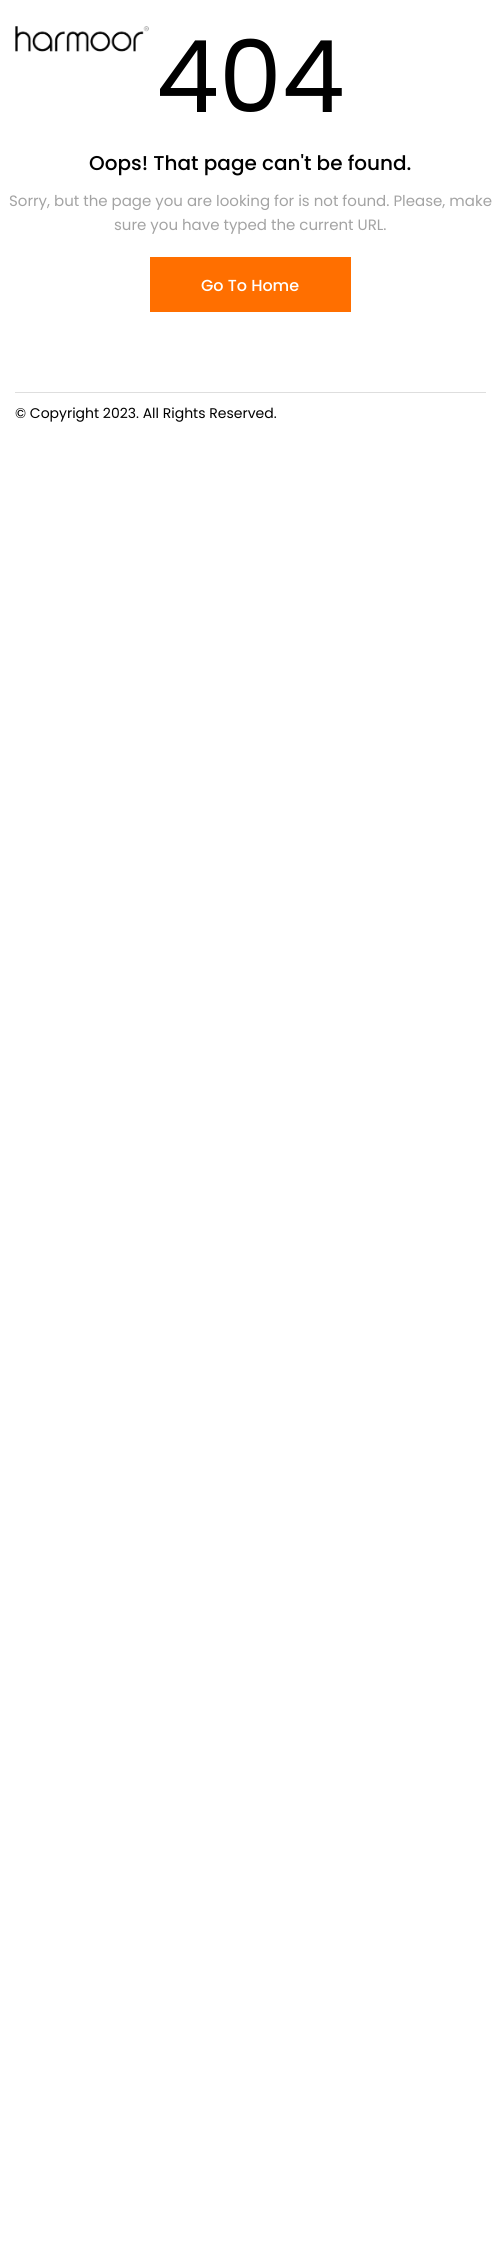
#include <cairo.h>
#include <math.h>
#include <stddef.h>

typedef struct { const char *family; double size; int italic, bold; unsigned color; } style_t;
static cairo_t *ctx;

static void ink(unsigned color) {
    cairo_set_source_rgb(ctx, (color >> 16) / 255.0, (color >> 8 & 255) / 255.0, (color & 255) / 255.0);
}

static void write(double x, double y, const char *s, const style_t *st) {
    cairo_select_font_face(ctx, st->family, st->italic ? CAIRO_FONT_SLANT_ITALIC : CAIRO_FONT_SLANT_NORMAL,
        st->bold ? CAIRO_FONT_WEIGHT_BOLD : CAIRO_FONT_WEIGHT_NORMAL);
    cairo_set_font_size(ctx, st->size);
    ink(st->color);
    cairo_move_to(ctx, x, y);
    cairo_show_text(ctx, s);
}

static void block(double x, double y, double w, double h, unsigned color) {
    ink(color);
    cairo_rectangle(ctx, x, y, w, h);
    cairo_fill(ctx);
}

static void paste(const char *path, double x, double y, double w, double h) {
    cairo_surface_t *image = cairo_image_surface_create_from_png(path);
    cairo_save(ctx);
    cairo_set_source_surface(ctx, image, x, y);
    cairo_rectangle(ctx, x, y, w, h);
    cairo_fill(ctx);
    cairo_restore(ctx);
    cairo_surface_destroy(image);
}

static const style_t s1 = {"Poppins", 100, 0, 0, 0x000000};
static const style_t s2 = {"Poppins Medium", 20, 0, 0, 0x000000};
static const style_t s3 = {"Poppins", 15, 0, 0, 0xa3a3a3};
static const style_t s4 = {"Poppins Medium", 16, 0, 0, 0xffffff};
static const style_t s5 = {"Poppins", 14, 0, 0, 0x000000};

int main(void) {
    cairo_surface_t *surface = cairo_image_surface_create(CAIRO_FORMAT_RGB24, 501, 2257);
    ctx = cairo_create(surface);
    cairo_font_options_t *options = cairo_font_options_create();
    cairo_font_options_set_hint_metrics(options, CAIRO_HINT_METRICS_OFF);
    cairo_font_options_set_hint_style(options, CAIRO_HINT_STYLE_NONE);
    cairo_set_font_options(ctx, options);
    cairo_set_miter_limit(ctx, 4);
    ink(0xffffff);
    cairo_paint(ctx);
    paste("pic1.png", 15, 26, 134, 26);
    write(156, 112, "404", &s1);
    write(89, 170, "Oops! That page can't be found.", &s2);
    write(9, 206, "Sorry, but the page you are looking for is not found. Please, make", &s3);
    write(114, 230, "sure you have typed the current URL.", &s3);
    block(150, 257, 201, 55, 0xff6f00);
    write(201, 291, "Go To Home", &s4);
    block(15, 392, 471, 1, 0xdedede);
    write(15, 418, "© Copyright 2023. All Rights Reserved.", &s5);
    cairo_surface_write_to_png(surface, "screenshot.png");
    cairo_font_options_destroy(options);
    cairo_destroy(ctx);
    cairo_surface_destroy(surface);
    return 0;
}
